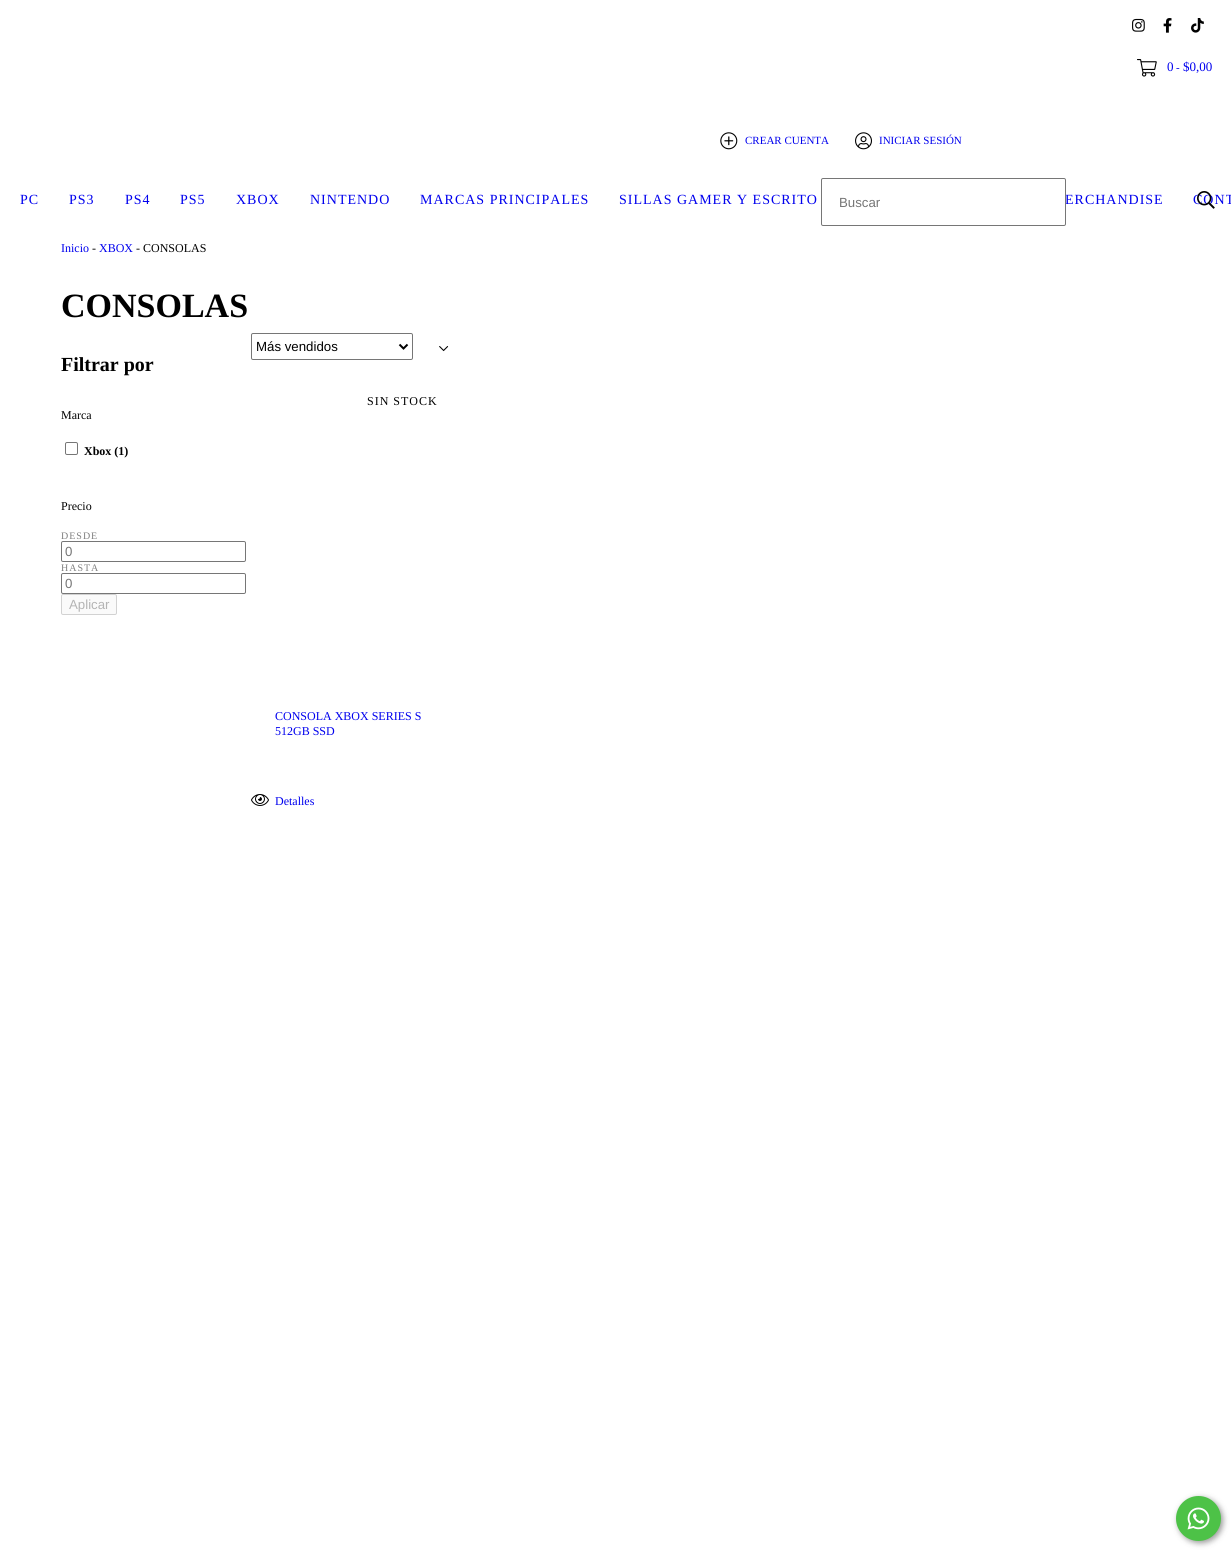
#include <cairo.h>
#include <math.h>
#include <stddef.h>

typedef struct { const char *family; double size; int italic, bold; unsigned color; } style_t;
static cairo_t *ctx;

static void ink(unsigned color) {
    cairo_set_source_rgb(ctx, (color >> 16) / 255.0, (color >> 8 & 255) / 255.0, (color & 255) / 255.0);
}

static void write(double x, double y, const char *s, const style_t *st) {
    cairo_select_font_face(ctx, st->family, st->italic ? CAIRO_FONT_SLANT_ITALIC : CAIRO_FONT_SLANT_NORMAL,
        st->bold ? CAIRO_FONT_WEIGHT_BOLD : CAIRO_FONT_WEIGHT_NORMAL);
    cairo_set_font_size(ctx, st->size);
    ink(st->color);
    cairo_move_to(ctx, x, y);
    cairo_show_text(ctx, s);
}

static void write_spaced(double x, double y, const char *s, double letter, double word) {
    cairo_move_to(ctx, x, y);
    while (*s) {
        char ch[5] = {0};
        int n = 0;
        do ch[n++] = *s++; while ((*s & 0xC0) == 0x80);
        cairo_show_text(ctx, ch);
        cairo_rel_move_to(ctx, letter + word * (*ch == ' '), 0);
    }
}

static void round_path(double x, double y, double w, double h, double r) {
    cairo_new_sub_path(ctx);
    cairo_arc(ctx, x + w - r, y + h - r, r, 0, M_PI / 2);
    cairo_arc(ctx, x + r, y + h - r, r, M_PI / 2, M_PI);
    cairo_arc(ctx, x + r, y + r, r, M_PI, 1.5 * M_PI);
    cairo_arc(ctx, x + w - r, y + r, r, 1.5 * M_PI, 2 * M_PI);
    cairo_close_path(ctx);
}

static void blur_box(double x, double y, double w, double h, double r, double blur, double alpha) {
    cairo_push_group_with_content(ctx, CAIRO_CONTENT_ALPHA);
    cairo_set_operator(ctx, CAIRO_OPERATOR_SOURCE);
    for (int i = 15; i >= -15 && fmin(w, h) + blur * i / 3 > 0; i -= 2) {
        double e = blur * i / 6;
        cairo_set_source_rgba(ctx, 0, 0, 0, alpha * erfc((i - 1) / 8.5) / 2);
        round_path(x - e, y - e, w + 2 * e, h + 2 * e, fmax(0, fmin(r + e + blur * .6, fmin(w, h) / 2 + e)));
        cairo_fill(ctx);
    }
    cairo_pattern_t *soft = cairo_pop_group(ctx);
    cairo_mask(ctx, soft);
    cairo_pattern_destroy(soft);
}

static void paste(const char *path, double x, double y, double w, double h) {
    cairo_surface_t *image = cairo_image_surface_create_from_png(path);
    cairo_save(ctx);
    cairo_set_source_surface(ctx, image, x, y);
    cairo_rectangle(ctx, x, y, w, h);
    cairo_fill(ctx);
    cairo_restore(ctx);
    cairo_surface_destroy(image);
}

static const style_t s1 = {"Liberation Serif", 13, 0, 0, 0x0000ee};
static const style_t s2 = {"Liberation Serif", 11, 0, 0, 0x0000ee};
static const style_t s3 = {"Liberation Sans", 13.25, 0, 0, 0x757575};
static const style_t s4 = {"Liberation Serif", 12, 0, 0, 0x0000ee};
static const style_t s5 = {"Liberation Serif", 12, 0, 0, 0x000000};
static const style_t s6 = {"Liberation Serif", 34, 0, 1, 0x000000};
static const style_t s7 = {"Liberation Serif", 20, 0, 1, 0x000000};
static const style_t s8 = {"Liberation Serif", 12, 0, 1, 0x000000};
static const style_t s9 = {"Liberation Sans", 13.25, 0, 0, 0xb4b4b4};
static const style_t s10 = {"Liberation Sans", 13.25, 0, 0, 0x000000};

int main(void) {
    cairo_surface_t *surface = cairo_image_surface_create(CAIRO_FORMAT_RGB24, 1231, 1551);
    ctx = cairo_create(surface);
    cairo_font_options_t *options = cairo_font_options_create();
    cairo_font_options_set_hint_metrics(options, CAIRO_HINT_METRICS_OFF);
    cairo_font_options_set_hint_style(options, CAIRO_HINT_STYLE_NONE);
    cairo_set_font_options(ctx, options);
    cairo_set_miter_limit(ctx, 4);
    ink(0xffffff);
    cairo_paint(ctx);
    paste("pic1.png", 1132, 18, 13, 14);
    paste("pic2.png", 1163, 18, 9, 15);
    paste("pic3.png", 1191, 18, 13, 15);
    paste("pic4.png", 1137, 59, 20, 18);
    write(1167, 71, "0", &s1);
    write(1176, 71, "-", &s2);
    write(1183, 71, "$0,00", &s1);
    paste("pic5.png", 720, 132, 18, 18);
    write(745, 144, "CREAR CUENTA", &s2);
    paste("pic6.png", 855, 132, 17, 18);
    write(879, 144, "INICIAR SESIÓN", &s2);
    cairo_set_font_size(ctx, 14);
    write_spaced(20, 204, "PC", 1, 0);
    write_spaced(69, 204, "PS3", 1, 0);
    write_spaced(125, 204, "PS4", 1, 0);
    write_spaced(180, 204, "PS5", 1, 0);
    write_spaced(236, 204, "XBOX", 1, 0);
    write_spaced(310, 204, "NINTENDO", 1, 0);
    write_spaced(420, 204, "MARCAS PRINCIPALES", 1, 0);
    write_spaced(619, 204, "SILLAS GAMER Y ESCRITO", 1, 0);
    write_spaced(1065, 204, "ERCHANDISE", 1, 0);
    write_spaced(1193, 204, "CONT", 1, 0);
    ink(0xffffff);
    round_path(821.5, 178.5, 244, 47, 1.5);
    cairo_fill_preserve(ctx);
    ink(0x767676);
    cairo_set_line_width(ctx, 1);
    cairo_stroke(ctx);
    write(839, 207, "Buscar", &s3);
    paste("pic7.png", 1197, 191, 18, 18);
    write(61, 252, "Inicio", &s4);
    write(92, 252, "-", &s5);
    write(99, 252, "XBOX", &s4);
    write(136, 252, "- CONSOLAS", &s5);
    write(61, 317, "CONSOLAS", &s6);
    write(61, 371, "Filtrar por", &s7);
    write(61, 419, "Marca", &s5);
    round_path(65.5, 442.5, 12, 12, 1.5);
    ink(0x767676);
    cairo_stroke(ctx);
    write(84, 455, "Xbox (1)", &s8);
    write(61, 510, "Precio", &s5);
    cairo_set_font_size(ctx, 10);
    ink(0x808080);
    write_spaced(61, 539, "DESDE", 1, 0);
    round_path(61.5, 541.5, 184, 20, 1.5);
    ink(0x767676);
    cairo_stroke(ctx);
    write(65, 556, "0", &s3);
    cairo_select_font_face(ctx, "Liberation Serif", CAIRO_FONT_SLANT_NORMAL, CAIRO_FONT_WEIGHT_NORMAL);
    cairo_set_font_size(ctx, 10);
    ink(0x808080);
    write_spaced(61, 571, "HASTA", 1, 0);
    round_path(61.5, 573.5, 184, 20, 1.5);
    ink(0x767676);
    cairo_stroke(ctx);
    write(65, 588, "0", &s3);
    ink(0xfafafa);
    round_path(61.5, 594.5, 55, 20, 1.5);
    cairo_fill_preserve(ctx);
    ink(0xd2d2d2);
    cairo_stroke(ctx);
    write(69, 609, "Aplicar", &s9);
    round_path(251.5, 333.5, 161, 26, 1.5);
    ink(0x767676);
    cairo_stroke(ctx);
    cairo_new_path(ctx);
    cairo_move_to(ctx, 399.5, 344.5);
    cairo_line_to(ctx, 403.5, 348.5);
    cairo_line_to(ctx, 407.5, 344.5);
    ink(0x000000);
    cairo_set_line_width(ctx, 2);
    cairo_stroke(ctx);
    write(256, 351, "Más vendidos", &s10);
    paste("pic8.png", 439, 346, 10, 6);
    cairo_select_font_face(ctx, "Liberation Serif", CAIRO_FONT_SLANT_NORMAL, CAIRO_FONT_WEIGHT_NORMAL);
    cairo_set_font_size(ctx, 12);
    write_spaced(367, 405, "SIN STOCK", 1, 0);
    write(275, 720, "CONSOLA XBOX SERIES S", &s4);
    write(275, 735, "512GB SSD", &s4);
    paste("pic9.png", 251, 794, 18, 12);
    write(275, 805, "Detalles", &s4);
    ink(0x000000);
    blur_box(1178, 1498, 45, 45, 22.5, 3, 0.4);
    ink(0x4dc247);
    cairo_arc(ctx, 1198.5, 1518.5, 22.5, 0, 2 * M_PI);
    cairo_fill(ctx);
    paste("pic10.png", 1187, 1507, 23, 23);
    cairo_surface_write_to_png(surface, "screenshot.png");
    cairo_font_options_destroy(options);
    cairo_destroy(ctx);
    cairo_surface_destroy(surface);
    return 0;
}
